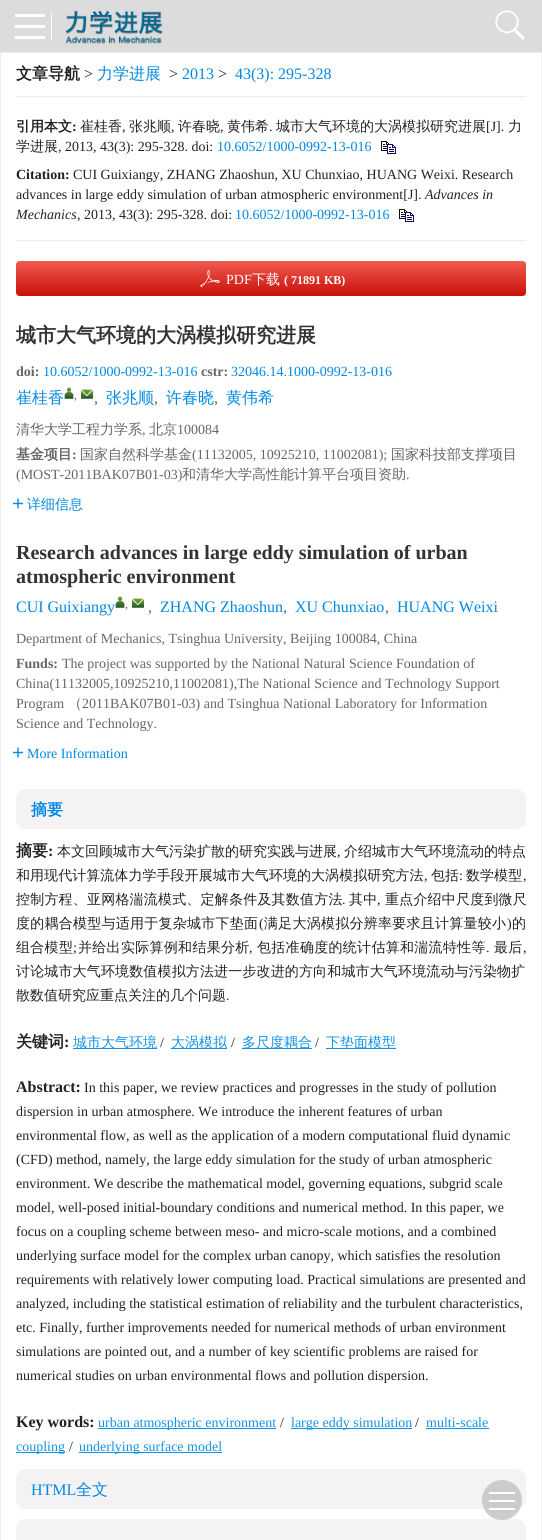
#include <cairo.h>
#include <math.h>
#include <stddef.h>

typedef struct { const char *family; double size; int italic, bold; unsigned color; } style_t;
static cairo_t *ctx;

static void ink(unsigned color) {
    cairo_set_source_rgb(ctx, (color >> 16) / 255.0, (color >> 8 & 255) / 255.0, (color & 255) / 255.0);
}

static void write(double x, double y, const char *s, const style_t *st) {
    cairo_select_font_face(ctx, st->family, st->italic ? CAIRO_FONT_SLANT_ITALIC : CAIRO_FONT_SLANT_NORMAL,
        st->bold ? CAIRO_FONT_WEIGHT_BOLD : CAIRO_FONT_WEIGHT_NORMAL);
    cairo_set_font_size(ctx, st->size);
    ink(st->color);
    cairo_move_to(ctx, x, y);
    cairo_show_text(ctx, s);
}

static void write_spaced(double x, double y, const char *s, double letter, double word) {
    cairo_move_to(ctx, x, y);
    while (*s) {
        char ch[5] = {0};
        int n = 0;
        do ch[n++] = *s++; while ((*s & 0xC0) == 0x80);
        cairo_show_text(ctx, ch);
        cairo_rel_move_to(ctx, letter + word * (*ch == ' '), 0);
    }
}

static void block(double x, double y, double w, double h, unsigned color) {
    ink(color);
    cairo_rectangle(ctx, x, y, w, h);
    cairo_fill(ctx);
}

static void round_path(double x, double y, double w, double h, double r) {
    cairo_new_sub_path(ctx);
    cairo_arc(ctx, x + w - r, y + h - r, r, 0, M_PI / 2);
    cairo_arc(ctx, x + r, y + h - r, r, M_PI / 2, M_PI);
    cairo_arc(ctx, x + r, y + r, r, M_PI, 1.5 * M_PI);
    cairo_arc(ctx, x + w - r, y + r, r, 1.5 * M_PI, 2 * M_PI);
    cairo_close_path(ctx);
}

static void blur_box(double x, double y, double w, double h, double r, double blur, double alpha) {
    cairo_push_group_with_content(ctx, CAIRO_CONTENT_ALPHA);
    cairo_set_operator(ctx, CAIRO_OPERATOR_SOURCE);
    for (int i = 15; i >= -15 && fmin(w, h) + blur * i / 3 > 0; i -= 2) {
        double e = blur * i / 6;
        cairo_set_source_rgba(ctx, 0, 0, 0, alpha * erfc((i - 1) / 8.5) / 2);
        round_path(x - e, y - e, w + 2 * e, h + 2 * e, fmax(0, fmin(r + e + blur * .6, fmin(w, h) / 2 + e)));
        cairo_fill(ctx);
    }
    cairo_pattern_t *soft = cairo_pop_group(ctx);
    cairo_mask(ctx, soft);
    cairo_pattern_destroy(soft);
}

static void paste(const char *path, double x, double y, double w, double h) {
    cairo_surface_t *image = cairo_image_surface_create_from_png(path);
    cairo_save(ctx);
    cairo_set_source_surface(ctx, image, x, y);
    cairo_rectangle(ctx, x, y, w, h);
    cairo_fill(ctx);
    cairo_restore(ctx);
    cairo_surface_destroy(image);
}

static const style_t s1 = {"WenQuanYi Zen Hei", 16, 0, 1, 0x222222};
static const style_t s2 = {"Liberation Serif", 16, 0, 0, 0x222222};
static const style_t s3 = {"WenQuanYi Zen Hei Medium", 16, 0, 0, 0x0089e3};
static const style_t s4 = {"Liberation Serif", 16, 0, 0, 0x0089e3};
static const style_t s5 = {"WenQuanYi Zen Hei Medium", 14, 0, 0, 0x222222};
static const style_t s6 = {"Liberation Serif", 14, 0, 0, 0x222222};
static const style_t s7 = {"Liberation Serif", 14, 0, 0, 0x0089e3};
static const style_t s8 = {"WenQuanYi Zen Hei", 14, 0, 1, 0x222222};
static const style_t s9 = {"Liberation Serif", 14, 0, 1, 0x222222};
static const style_t s10 = {"Liberation Serif", 14, 1, 0, 0x222222};
static const style_t s11 = {"Liberation Serif", 14, 0, 0, 0xffffff};
static const style_t s12 = {"WenQuanYi Zen Hei Medium", 14, 0, 0, 0xffffff};
static const style_t s13 = {"Liberation Serif", 12, 0, 1, 0xffffff};
static const style_t s14 = {"WenQuanYi Zen Hei", 20, 0, 1, 0x333333};
static const style_t s15 = {"Liberation Serif", 14, 0, 1, 0x666666};
static const style_t s16 = {"Liberation Serif", 12, 0, 0, 0x666666};
static const style_t s17 = {"Liberation Serif", 16, 0, 0, 0x666666};
static const style_t s18 = {"WenQuanYi Zen Hei Medium", 14, 0, 0, 0x666666};
static const style_t s19 = {"Liberation Serif", 14, 0, 0, 0x666666};
static const style_t s20 = {"WenQuanYi Zen Hei", 14, 0, 1, 0x666666};
static const style_t s21 = {"WenQuanYi Zen Hei Medium", 14, 0, 0, 0x0089e3};
static const style_t s22 = {"Liberation Serif", 20, 0, 1, 0x333333};
static const style_t s23 = {"WenQuanYi Zen Hei", 16, 0, 1, 0x0089e3};
static const style_t s24 = {"Liberation Serif", 16, 0, 1, 0x222222};
static const style_t s25 = {"WenQuanYi Zen Hei Medium", 14, 0, 0, 0x1193e4};
static const style_t s26 = {"Liberation Serif", 14, 0, 0, 0x1193e4};

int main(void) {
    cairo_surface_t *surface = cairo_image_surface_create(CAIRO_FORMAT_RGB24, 542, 1540);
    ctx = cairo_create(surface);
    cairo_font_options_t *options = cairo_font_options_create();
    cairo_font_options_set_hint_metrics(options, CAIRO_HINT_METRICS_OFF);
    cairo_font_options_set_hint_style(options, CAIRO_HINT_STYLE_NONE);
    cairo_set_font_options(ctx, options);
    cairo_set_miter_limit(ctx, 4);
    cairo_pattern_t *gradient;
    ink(0xdcdcdc);
    cairo_paint(ctx);
    block(15, 14, 30, 3, 0xffffff);
    block(15, 25, 30, 3, 0xffffff);
    block(15, 36, 30, 3, 0xffffff);
    block(51, 13, 1, 28, 0xffffff);
    paste("pic1.png", 65, 10, 98, 34);
    paste("pic2.png", 495, 10, 30, 30);
    cairo_rectangle(ctx, 0.5, 52.5, 541, 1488);
    cairo_fill_preserve(ctx);
    ink(0xeeeeee);
    cairo_set_line_width(ctx, 1);
    cairo_stroke(ctx);
    block(16, 96, 510, 1, 0xeeeeee);
    write(16, 79, "文章导航", &s1);
    write(84, 79, ">", &s2);
    write(97, 79, "力学进展", &s3);
    write(169, 79, ">", &s2);
    write(182, 79, "2013", &s4);
    write(218, 79, ">", &s2);
    write(235, 79, "43(3): 295-328", &s4);
    block(16, 240, 510, 1, 0xeeeeee);
    write(80, 131, "崔桂香", &s5);
    write(122, 131, ",", &s6);
    write(129, 131, "张兆顺", &s5);
    write(171, 131, ",", &s6);
    write(178, 131, "许春晓", &s5);
    write(220, 131, ",", &s6);
    write(227, 131, "黄伟希", &s5);
    write(269, 131, ".", &s6);
    write(276, 131, "城市大气环境的大涡模拟研究进展", &s5);
    write(486, 131, "[J].", &s6);
    write(508, 131, "力", &s5);
    write(16, 151, "学进展", &s5);
    write(58, 151, ", 2013, 43(3): 295-328. doi:", &s6);
    write(217, 151, "10.6052/1000-0992-13-016", &s7);
    paste("pic3.png", 381, 141, 15, 13);
    write(16, 131, "引用本文", &s8);
    write(72, 131, ":", &s9);
    write(73, 179, "CUI Guixiangy, ZHANG Zhaoshun, XU Chunxiao, HUANG Weixi. Research", &s6);
    write(16, 199, "advances in large eddy simulation of urban atmospheric environment[J].", &s6);
    write(425, 199, "Advances in", &s10);
    write(16, 219, "Mechanics", &s10);
    write(77, 219, ", 2013, 43(3): 295-328. doi:", &s6);
    write(235, 219, "10.6052/1000-0992-13-016", &s7);
    paste("pic3.png", 399, 209, 15, 13);
    write(16, 179, "Citation:", &s9);
    cairo_save(ctx);
    cairo_rectangle(ctx, 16, 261, 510, 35);
    cairo_clip(ctx);
    ink(0x000000);
    blur_box(16, 261, 512, 37, 5, 0.5, 0.2);
    cairo_restore(ctx);
    gradient = cairo_pattern_create_linear(271, 261, 271, 296);
    cairo_pattern_add_color_stop_rgba(gradient, 0, 0.945, 0.353, 0.302, 1);
    cairo_pattern_add_color_stop_rgba(gradient, 1, 0.784, 0.063, 0.043, 1);
    cairo_set_source(ctx, gradient);
    cairo_pattern_destroy(gradient);
    round_path(16, 261, 510, 35, 4);
    cairo_fill(ctx);
    paste("pic4.png", 200, 270, 20, 17);
    write(226, 284, "PDF", &s11);
    write(252, 284, "下载", &s12);
    write(284, 284, "( 71891 KB)", &s13);
    write(16, 342, "城市大气环境的大涡模拟研究进展", &s14);
    write(16, 376, "doi:", &s15);
    write(43, 376, "10.6052/1000-0992-13-016", &s7);
    write(201, 376, "cstr:", &s15);
    write(231, 376, "32046.14.1000-0992-13-016", &s7);
    write(16, 403, "崔桂香", &s3);
    paste("pic5.png", 64, 387, 10, 12);
    write(74, 399, ",", &s16);
    paste("pic6.png", 81, 389, 12, 10);
    write(94, 403, ",", &s17);
    write(106, 403, "张兆顺", &s3);
    write(154, 403, ",", &s17);
    write(166, 403, "许春晓", &s3);
    write(214, 403, ",", &s17);
    write(226, 403, "黄伟希", &s3);
    write(16, 434, "清华大学工程力学系", &s18);
    write(142, 434, ",", &s19);
    write(149, 434, "北京", &s18);
    write(177, 434, "100084", &s19);
    write(16, 459, "基金项目", &s20);
    write(72, 459, ":", &s15);
    write(80, 459, "国家自然科学基金", &s18);
    write(192, 459, "(11132005, 10925210, 11002081);", &s19);
    write(391, 459, "国家科技部支撑项目", &s18);
    write(16, 479, "(MOST-2011BAK07B01-03)", &s19);
    write(182, 479, "和清华大学高性能计算平台项目资助", &s18);
    write(406, 479, ".", &s19);
    paste("pic7.png", 13, 498, 10, 11);
    write(27, 509, "详细信息", &s21);
    write(16, 559, "Research advances in large eddy simulation of urban", &s22);
    write(16, 583, "atmospheric environment", &s22);
    write(16, 612, "CUI Guixiangy", &s4);
    paste("pic5.png", 115, 596, 10, 12);
    write(125, 608, ",", &s16);
    paste("pic6.png", 132, 598, 12, 10);
    write(148, 612, ",", &s17);
    write(160, 612, "ZHANG Zhaoshun", &s4);
    write(283, 612, ",", &s17);
    write(295, 612, "XU Chunxiao", &s4);
    write(385, 612, ",", &s17);
    write(397, 612, "HUANG Weixi", &s4);
    write(16, 643, "Department of Mechanics, Tsinghua University, Beijing 100084, China", &s19);
    write(16, 668, "Funds:", &s15);
    write(62, 668, "The project was supported by the National Natural Science Foundation of", &s19);
    write(16, 688, "China(11132005,10925210,11002081),The National Science and Technology Support", &s19);
    write(16, 708, "Program", &s19);
    write(68, 708, "（", &s18);
    write(82, 708, "2011BAK07B01-03) and Tsinghua National Laboratory for Information", &s19);
    write(16, 728, "Science and Technology.", &s19);
    paste("pic7.png", 13, 747, 10, 11);
    write(27, 758, "More Information", &s7);
    ink(0xf4f2f2);
    round_path(16, 789, 510, 40, 10);
    cairo_fill(ctx);
    write(31, 815, "摘要", &s23);
    write(16, 856, "摘要", &s1);
    write(48, 856, ":", &s24);
    write(57, 856, "本文回顾城市大气污染扩散的研究实践与进展", &s5);
    write(337, 856, ",", &s6);
    write(344, 856, "介绍城市大气环境流动的特点", &s5);
    write_spaced(16, 880, "和用现代计算流体力学手段开展城市大气环境的大涡模拟研究方法", 0.05, 0);
    cairo_select_font_face(ctx, "Liberation Serif", CAIRO_FONT_SLANT_NORMAL, CAIRO_FONT_WEIGHT_NORMAL);
    write_spaced(424, 880, ",", 0.05, 0);
    cairo_select_font_face(ctx, "WenQuanYi Zen Hei Medium", CAIRO_FONT_SLANT_NORMAL, CAIRO_FONT_WEIGHT_NORMAL);
    write_spaced(431, 880, "包括", 0.05, 0);
    cairo_select_font_face(ctx, "Liberation Serif", CAIRO_FONT_SLANT_NORMAL, CAIRO_FONT_WEIGHT_NORMAL);
    write_spaced(459, 880, ":", 0.05, 0);
    cairo_select_font_face(ctx, "WenQuanYi Zen Hei Medium", CAIRO_FONT_SLANT_NORMAL, CAIRO_FONT_WEIGHT_NORMAL);
    write_spaced(466, 880, "数学模型", 0.05, 0);
    cairo_select_font_face(ctx, "Liberation Serif", CAIRO_FONT_SLANT_NORMAL, CAIRO_FONT_WEIGHT_NORMAL);
    write_spaced(523, 880, ",", 0.05, 0);
    cairo_select_font_face(ctx, "WenQuanYi Zen Hei Medium", CAIRO_FONT_SLANT_NORMAL, CAIRO_FONT_WEIGHT_NORMAL);
    write_spaced(16, 904, "控制方程、亚网格湍流模式、定解条件及其数值方法", 0.2, 0);
    cairo_select_font_face(ctx, "Liberation Serif", CAIRO_FONT_SLANT_NORMAL, CAIRO_FONT_WEIGHT_NORMAL);
    write_spaced(342, 904, ".", 0.2, 0);
    cairo_select_font_face(ctx, "WenQuanYi Zen Hei Medium", CAIRO_FONT_SLANT_NORMAL, CAIRO_FONT_WEIGHT_NORMAL);
    write_spaced(349, 904, "其中", 0.2, 0);
    cairo_select_font_face(ctx, "Liberation Serif", CAIRO_FONT_SLANT_NORMAL, CAIRO_FONT_WEIGHT_NORMAL);
    write_spaced(377, 904, ",", 0.2, 0);
    cairo_select_font_face(ctx, "WenQuanYi Zen Hei Medium", CAIRO_FONT_SLANT_NORMAL, CAIRO_FONT_WEIGHT_NORMAL);
    write_spaced(385, 904, "重点介绍中尺度到微尺", 0.2, 0);
    write_spaced(16, 928, "度的耦合模型与适用于复杂城市下垫面", 0.25, 0);
    cairo_select_font_face(ctx, "Liberation Serif", CAIRO_FONT_SLANT_NORMAL, CAIRO_FONT_WEIGHT_NORMAL);
    write_spaced(259, 928, "(", 0.25, 0);
    cairo_select_font_face(ctx, "WenQuanYi Zen Hei Medium", CAIRO_FONT_SLANT_NORMAL, CAIRO_FONT_WEIGHT_NORMAL);
    write_spaced(264, 928, "满足大涡模拟分辨率要求且计算量较小", 0.25, 0);
    cairo_select_font_face(ctx, "Liberation Serif", CAIRO_FONT_SLANT_NORMAL, CAIRO_FONT_WEIGHT_NORMAL);
    write_spaced(507, 928, ")", 0.25, 0);
    cairo_select_font_face(ctx, "WenQuanYi Zen Hei Medium", CAIRO_FONT_SLANT_NORMAL, CAIRO_FONT_WEIGHT_NORMAL);
    write_spaced(512, 928, "的", 0.25, 0);
    write_spaced(16, 952, "组合模型", 0.3, 0);
    cairo_select_font_face(ctx, "Liberation Serif", CAIRO_FONT_SLANT_NORMAL, CAIRO_FONT_WEIGHT_NORMAL);
    write_spaced(73, 952, ";", 0.3, 0);
    cairo_select_font_face(ctx, "WenQuanYi Zen Hei Medium", CAIRO_FONT_SLANT_NORMAL, CAIRO_FONT_WEIGHT_NORMAL);
    write_spaced(78, 952, "并给出实际算例和结果分析", 0.3, 0);
    cairo_select_font_face(ctx, "Liberation Serif", CAIRO_FONT_SLANT_NORMAL, CAIRO_FONT_WEIGHT_NORMAL);
    write_spaced(249, 952, ",", 0.3, 0);
    cairo_select_font_face(ctx, "WenQuanYi Zen Hei Medium", CAIRO_FONT_SLANT_NORMAL, CAIRO_FONT_WEIGHT_NORMAL);
    write_spaced(257, 952, "包括准确度的统计估算和湍流特性等", 0.3, 0);
    cairo_select_font_face(ctx, "Liberation Serif", CAIRO_FONT_SLANT_NORMAL, CAIRO_FONT_WEIGHT_NORMAL);
    write_spaced(486, 952, ".", 0.3, 0);
    cairo_select_font_face(ctx, "WenQuanYi Zen Hei Medium", CAIRO_FONT_SLANT_NORMAL, CAIRO_FONT_WEIGHT_NORMAL);
    write_spaced(494, 952, "最后", 0.3, 0);
    cairo_select_font_face(ctx, "Liberation Serif", CAIRO_FONT_SLANT_NORMAL, CAIRO_FONT_WEIGHT_NORMAL);
    write_spaced(523, 952, ",", 0.3, 0);
    cairo_select_font_face(ctx, "WenQuanYi Zen Hei Medium", CAIRO_FONT_SLANT_NORMAL, CAIRO_FONT_WEIGHT_NORMAL);
    write_spaced(16, 976, "讨论城市大气环境数值模拟方法进一步改进的方向和城市大气环境流动与污染物扩", 0.15, 0);
    write(16, 1000, "散数值研究应重点关注的几个问题", &s5);
    write(226, 1000, ".", &s6);
    write(16, 1047, "关键词", &s1);
    write(64, 1047, ":", &s24);
    block(73, 1048, 84, 1, 0x1193e4);
    write(73, 1047, "城市大气环境", &s25);
    write(160, 1047, "/", &s6);
    block(171, 1048, 56, 1, 0x1193e4);
    write(171, 1047, "大涡模拟", &s25);
    write(231, 1047, "/", &s6);
    block(242, 1048, 70, 1, 0x1193e4);
    write(242, 1047, "多尺度耦合", &s25);
    write(315, 1047, "/", &s6);
    block(326, 1048, 70, 1, 0x1193e4);
    write(326, 1047, "下垫面模型", &s25);
    write(16, 1092, "Abstract:", &s24);
    write(84, 1092, "In this paper, we review practices and progresses in the study of pollution", &s6);
    write(16, 1116, "dispersion in urban atmosphere. We introduce the inherent features of urban", &s6);
    write(16, 1140, "environmental flow, as well as the application of a modern computational fluid dynamic", &s6);
    write(16, 1164, "(CFD) method, namely, the large eddy simulation for the study of urban atmospheric", &s6);
    write(16, 1188, "environment. We describe the mathematical model, governing equations, subgrid scale", &s6);
    write(16, 1212, "model, well-posed initial-boundary conditions and numerical method. In this paper, we", &s6);
    write(16, 1236, "focus on a coupling scheme between meso- and micro-scale motions, and a combined", &s6);
    write(16, 1260, "underlying surface model for the complex urban canopy, which satisfies the resolution", &s6);
    write(16, 1284, "requirements with relatively lower computing load. Practical simulations are presented and", &s6);
    write(16, 1308, "analyzed, including the statistical estimation of reliability and the turbulent characteristics,", &s6);
    write(16, 1332, "etc. Finally, further improvements needed for numerical methods of urban environment", &s6);
    write(16, 1356, "simulations are pointed out, and a number of key scientific problems are raised for", &s6);
    write(16, 1380, "numerical studies on urban environmental flows and pollution dispersion.", &s6);
    write(16, 1427, "Key words:", &s24);
    block(98, 1428, 178, 1, 0x1193e4);
    write(98, 1427, "urban atmospheric environment", &s26);
    write(280, 1427, "/", &s6);
    block(291, 1428, 121, 1, 0x1193e4);
    write(291, 1427, "large eddy simulation", &s26);
    write(415, 1427, "/", &s6);
    write(426, 1427, "multi-scale", &s26);
    block(426, 1428, 63, 1, 0x1193e4);
    block(16, 1452, 49, 1, 0x1193e4);
    write(16, 1451, "coupling", &s26);
    write(69, 1451, "/", &s6);
    block(79, 1452, 143, 1, 0x1193e4);
    write(79, 1451, "underlying surface model", &s26);
    ink(0xf4f2f2);
    round_path(16, 1469, 510, 40, 10);
    cairo_fill(ctx);
    write(31, 1495, "HTML", &s4);
    write(76, 1495, "全文", &s3);
    ink(0xf4f2f2);
    round_path(16, 1519, 510, 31, 10);
    cairo_fill(ctx);
    ink(0xcccccc);
    cairo_arc(ctx, 502, 1500, 19.5, 0, 2 * M_PI);
    cairo_fill_preserve(ctx);
    cairo_stroke(ctx);
    block(489, 1492, 26, 2, 0xffffff);
    block(489, 1500, 26, 2, 0xffffff);
    block(489, 1508, 26, 2, 0xffffff);
    cairo_surface_write_to_png(surface, "screenshot.png");
    cairo_font_options_destroy(options);
    cairo_destroy(ctx);
    cairo_surface_destroy(surface);
    return 0;
}
